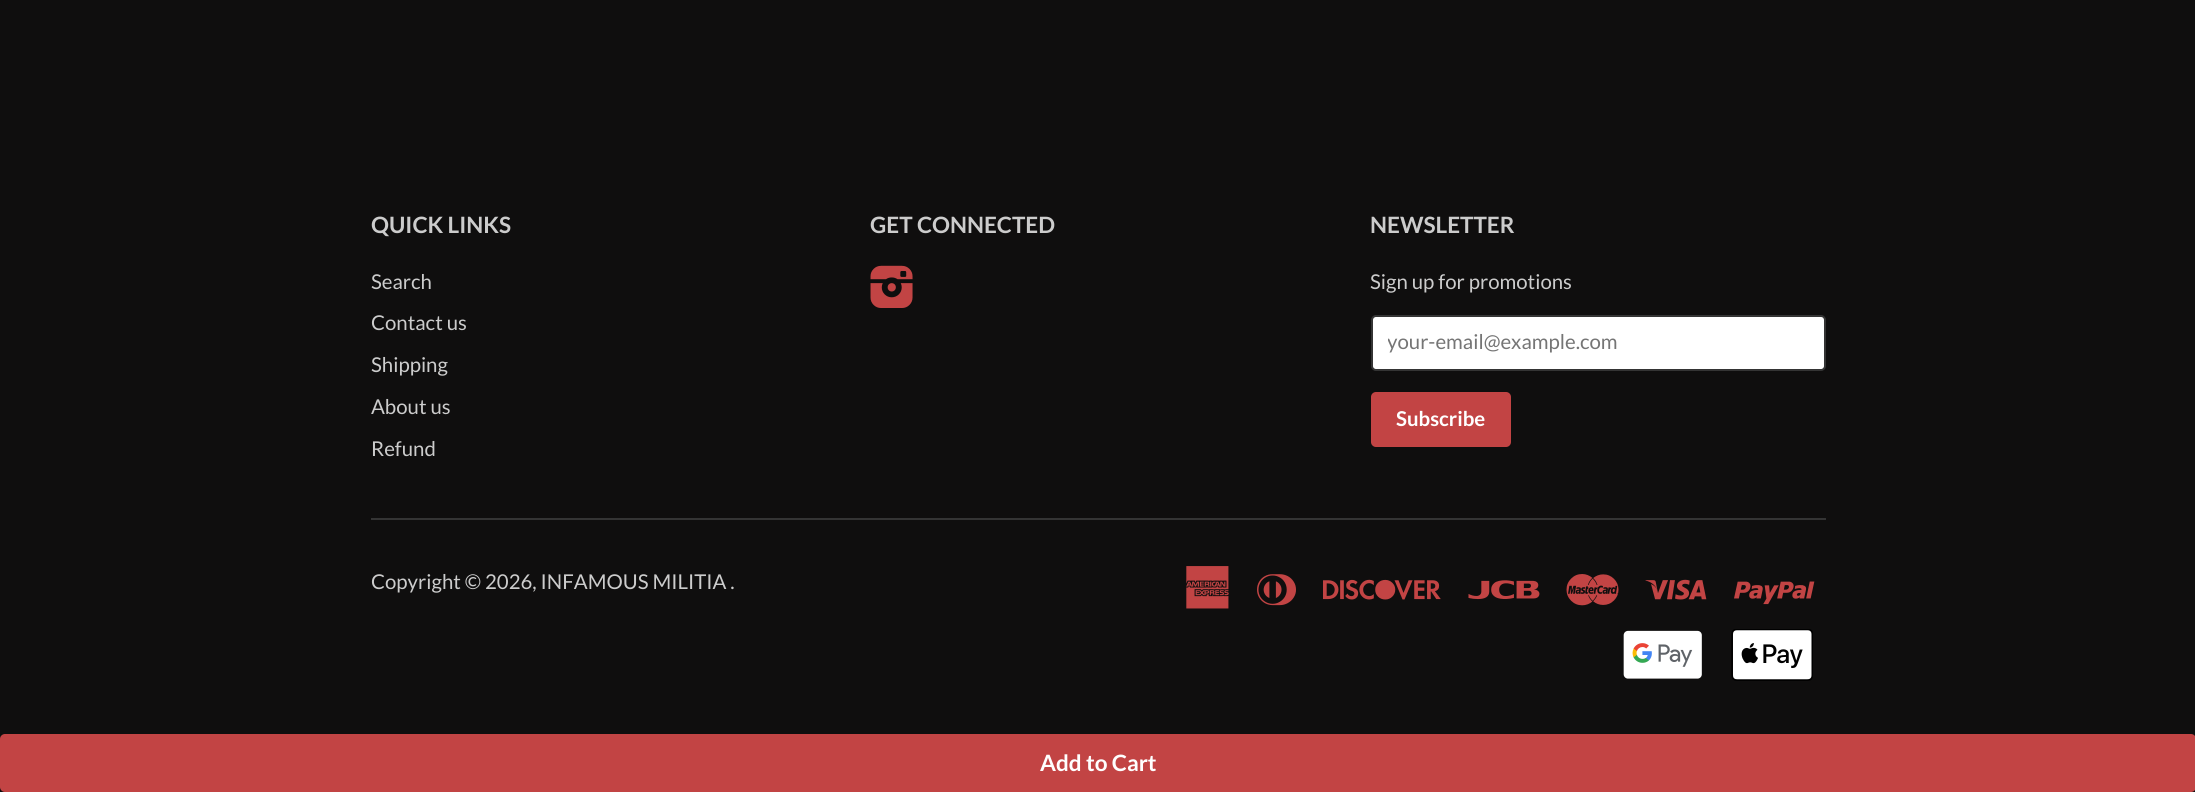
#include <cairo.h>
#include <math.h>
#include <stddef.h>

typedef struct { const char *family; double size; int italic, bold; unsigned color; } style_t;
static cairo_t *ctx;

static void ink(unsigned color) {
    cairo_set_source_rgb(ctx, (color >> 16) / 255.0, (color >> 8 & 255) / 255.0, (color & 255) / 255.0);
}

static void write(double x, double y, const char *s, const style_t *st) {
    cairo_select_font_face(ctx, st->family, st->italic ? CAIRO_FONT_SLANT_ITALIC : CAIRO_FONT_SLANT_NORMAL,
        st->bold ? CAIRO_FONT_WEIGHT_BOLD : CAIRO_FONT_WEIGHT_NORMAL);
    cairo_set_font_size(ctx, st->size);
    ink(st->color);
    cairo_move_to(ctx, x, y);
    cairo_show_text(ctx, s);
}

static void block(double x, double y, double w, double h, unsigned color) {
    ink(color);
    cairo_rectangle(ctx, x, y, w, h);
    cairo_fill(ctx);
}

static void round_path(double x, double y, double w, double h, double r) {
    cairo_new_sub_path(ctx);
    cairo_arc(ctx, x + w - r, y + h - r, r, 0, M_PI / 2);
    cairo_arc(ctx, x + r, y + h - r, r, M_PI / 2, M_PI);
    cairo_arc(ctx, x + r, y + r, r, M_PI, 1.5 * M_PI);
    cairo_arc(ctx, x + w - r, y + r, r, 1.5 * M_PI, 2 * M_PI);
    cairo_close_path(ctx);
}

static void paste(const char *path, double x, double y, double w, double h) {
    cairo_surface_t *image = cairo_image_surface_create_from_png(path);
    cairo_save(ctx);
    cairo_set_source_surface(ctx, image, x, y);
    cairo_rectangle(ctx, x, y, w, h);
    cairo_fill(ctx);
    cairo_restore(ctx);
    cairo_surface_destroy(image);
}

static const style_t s1 = {"Lato", 22.5, 0, 1, 0xcccccc};
static const style_t s2 = {"Lato", 20.4, 0, 0, 0xcccccc};
static const style_t s3 = {"Lato", 20.4, 0, 0, 0x757575};
static const style_t s4 = {"Lato", 20.4, 0, 1, 0xffffff};
static const style_t s5 = {"Lato", 22.5, 0, 1, 0xffffff};

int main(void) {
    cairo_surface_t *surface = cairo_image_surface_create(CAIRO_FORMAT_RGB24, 2195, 792);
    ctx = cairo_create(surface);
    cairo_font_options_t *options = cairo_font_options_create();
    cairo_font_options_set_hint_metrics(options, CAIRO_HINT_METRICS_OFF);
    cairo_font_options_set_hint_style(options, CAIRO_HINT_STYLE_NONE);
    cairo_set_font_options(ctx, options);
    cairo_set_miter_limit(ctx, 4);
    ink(0x0f0e0e);
    cairo_paint(ctx);
    write(371, 233, "QUICK LINKS", &s1);
    write(371, 289, "Search", &s2);
    write(371, 330, "Contact us", &s2);
    write(371, 372, "Shipping", &s2);
    write(371, 414, "About us", &s2);
    write(371, 456, "Refund", &s2);
    write(870, 233, "GET CONNECTED", &s1);
    paste("pic1.png", 870, 265, 43, 43);
    write(1370, 233, "NEWSLETTER", &s1);
    write(1370, 289, "Sign up for promotions", &s2);
    ink(0xffffff);
    round_path(1372, 316, 453, 54, 4);
    cairo_fill_preserve(ctx);
    ink(0x343434);
    cairo_stroke(ctx);
    cairo_save(ctx);
    cairo_rectangle(ctx, 1388, 330, 421, 24);
    cairo_clip(ctx);
    write(1387, 349, "your-email@example.com", &s3);
    cairo_restore(ctx);
    ink(0xc24444);
    round_path(1371, 392, 140, 55, 5);
    cairo_fill(ctx);
    write(1396, 426, "Subscribe", &s4);
    block(371, 518, 1455, 2, 0x343434);
    write(371, 589, "Copyright © 2026, INFAMOUS MILITIA .", &s2);
    paste("pic2.png", 1186, 566, 43, 43);
    paste("pic3.png", 1257, 574, 39, 32);
    paste("pic4.png", 1323, 579, 118, 21);
    paste("pic5.png", 1468, 580, 72, 20);
    paste("pic6.png", 1566, 574, 53, 32);
    paste("pic7.png", 1645, 579, 62, 21);
    paste("pic8.png", 1734, 581, 81, 24);
    paste("pic9.png", 1623, 630, 79, 49);
    paste("pic10.png", 1731, 629, 82, 52);
    ink(0xc24444);
    round_path(0, 734, 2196, 58, 5);
    cairo_fill(ctx);
    write(1040, 771, "Add to Cart", &s5);
    cairo_surface_write_to_png(surface, "screenshot.png");
    cairo_font_options_destroy(options);
    cairo_destroy(ctx);
    cairo_surface_destroy(surface);
    return 0;
}
